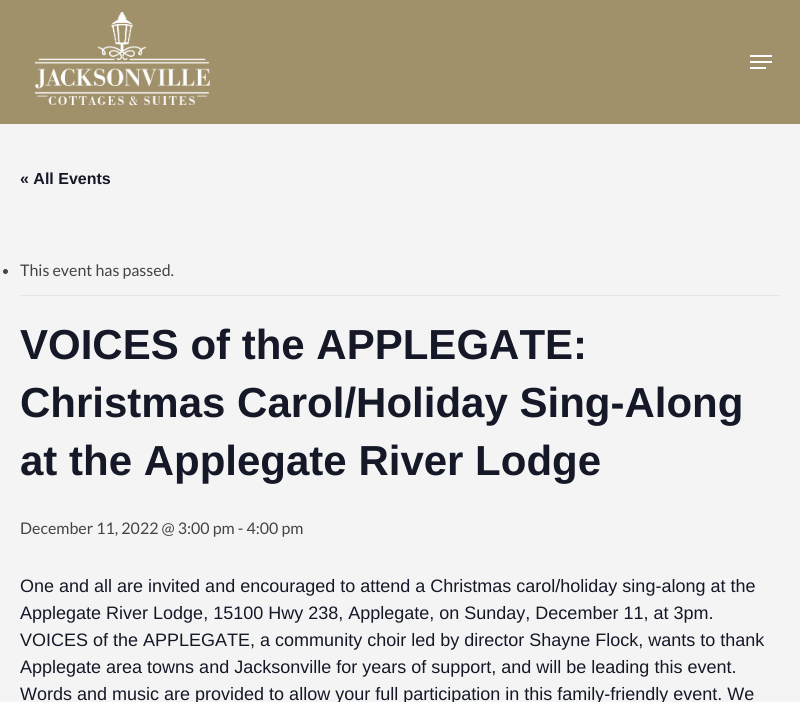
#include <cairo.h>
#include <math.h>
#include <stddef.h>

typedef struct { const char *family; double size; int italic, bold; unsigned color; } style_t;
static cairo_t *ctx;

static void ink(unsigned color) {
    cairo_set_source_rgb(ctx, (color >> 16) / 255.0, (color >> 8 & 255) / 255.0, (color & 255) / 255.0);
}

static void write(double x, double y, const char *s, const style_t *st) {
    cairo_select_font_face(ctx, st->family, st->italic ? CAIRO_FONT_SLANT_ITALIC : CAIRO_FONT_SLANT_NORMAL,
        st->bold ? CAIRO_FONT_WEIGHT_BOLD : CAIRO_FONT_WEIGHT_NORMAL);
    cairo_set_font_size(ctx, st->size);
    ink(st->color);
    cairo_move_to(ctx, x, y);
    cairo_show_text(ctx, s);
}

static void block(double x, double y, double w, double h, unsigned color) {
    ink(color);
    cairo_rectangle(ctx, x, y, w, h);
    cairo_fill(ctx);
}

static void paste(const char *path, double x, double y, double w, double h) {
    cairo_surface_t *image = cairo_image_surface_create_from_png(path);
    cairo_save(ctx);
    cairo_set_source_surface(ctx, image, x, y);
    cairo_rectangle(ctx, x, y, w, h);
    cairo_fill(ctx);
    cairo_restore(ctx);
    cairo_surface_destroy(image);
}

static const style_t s1 = {"Liberation Sans", 16, 0, 1, 0x141827};
static const style_t s2 = {"Lato", 16, 0, 0, 0x444444};
static const style_t s3 = {"Liberation Sans", 42, 0, 1, 0x141827};
static const style_t s4 = {"Liberation Sans", 18, 0, 0, 0x141827};

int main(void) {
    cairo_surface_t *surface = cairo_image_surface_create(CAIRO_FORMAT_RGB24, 800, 702);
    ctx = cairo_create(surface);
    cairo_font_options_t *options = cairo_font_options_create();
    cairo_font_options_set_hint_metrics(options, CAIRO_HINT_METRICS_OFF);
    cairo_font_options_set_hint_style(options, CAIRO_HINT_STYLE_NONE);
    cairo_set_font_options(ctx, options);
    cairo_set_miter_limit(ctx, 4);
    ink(0xf4f4f4);
    cairo_paint(ctx);
    block(0, 0, 800, 124, 0xa0916b);
    paste("pic1.png", 34, 12, 176, 94);
    block(750, 55, 22, 2, 0xffffff);
    block(750, 67, 16, 2, 0xffffff);
    block(750, 61, 22, 2, 0xffffff);
    write(20, 184, "« All Events", &s1);
    block(20, 295, 760, 1, 0xe4e4e4);
    ink(0x444444);
    cairo_new_path(ctx);
    cairo_arc(ctx, 5.5, 271.5, 2.5, 0, 2 * M_PI);
    cairo_fill(ctx);
    write(20, 276, "This event has passed.", &s2);
    write(20, 359, "VOICES of the APPLEGATE:", &s3);
    write(20, 417, "Christmas Carol/Holiday Sing-Along", &s3);
    write(20, 475, "at the Applegate River Lodge", &s3);
    write(20, 534, "December 11, 2022 @ 3:00 pm - 4:00 pm", &s2);
    write(20, 592, "One and all are invited and encouraged to attend a Christmas carol/holiday sing-along at the", &s4);
    write(20, 619, "Applegate River Lodge, 15100 Hwy 238, Applegate, on Sunday, December 11, at 3pm.", &s4);
    write(20, 646, "VOICES of the APPLEGATE, a community choir led by director Shayne Flock, wants to thank", &s4);
    write(20, 673, "Applegate area towns and Jacksonville for years of support, and will be leading this event.", &s4);
    write(20, 700, "Words and music are provided to allow your full participation in this family-friendly event. We", &s4);
    cairo_surface_write_to_png(surface, "screenshot.png");
    cairo_font_options_destroy(options);
    cairo_destroy(ctx);
    cairo_surface_destroy(surface);
    return 0;
}
